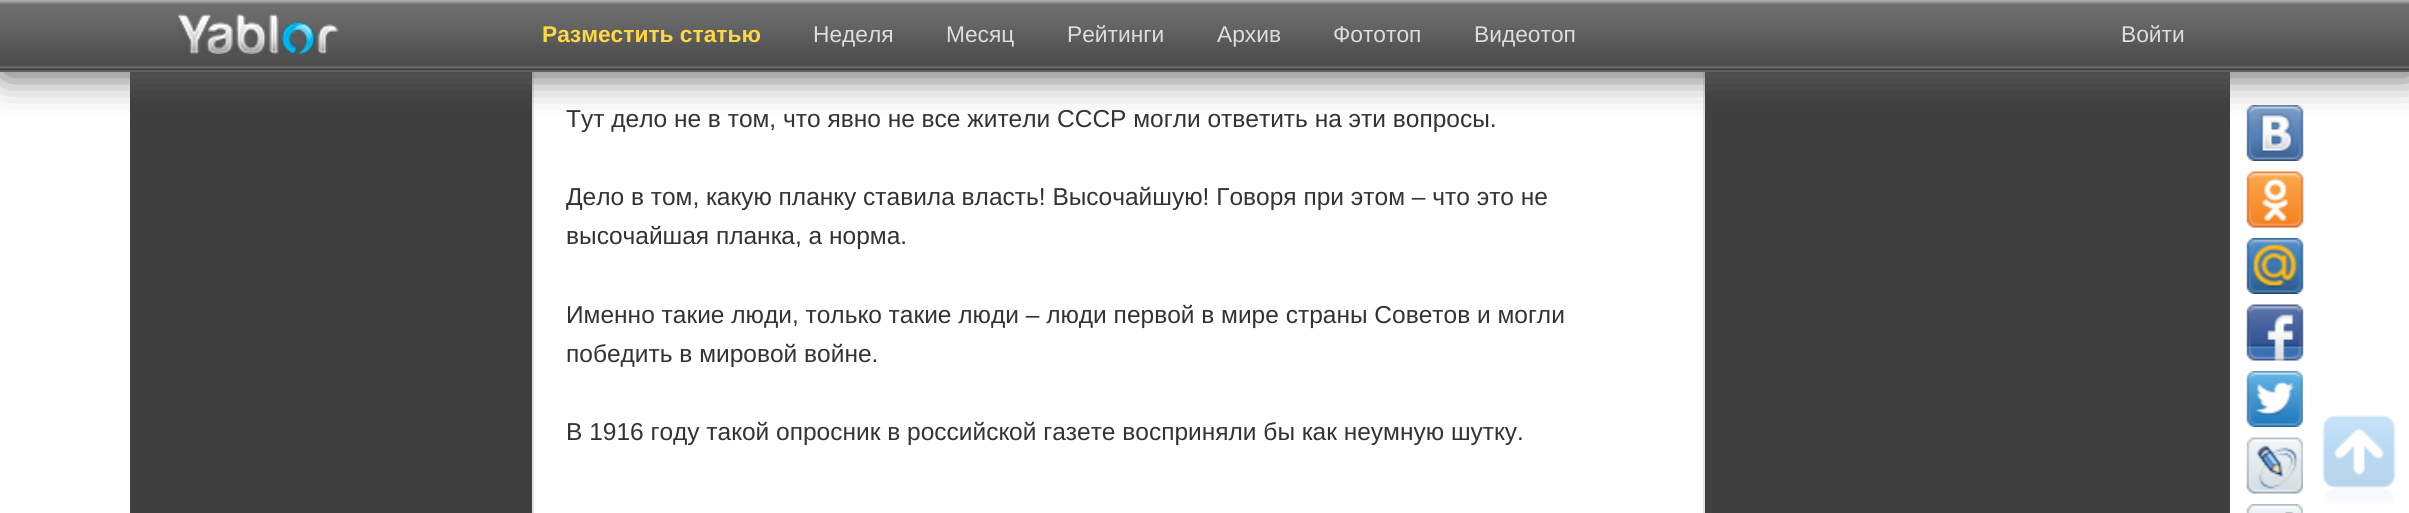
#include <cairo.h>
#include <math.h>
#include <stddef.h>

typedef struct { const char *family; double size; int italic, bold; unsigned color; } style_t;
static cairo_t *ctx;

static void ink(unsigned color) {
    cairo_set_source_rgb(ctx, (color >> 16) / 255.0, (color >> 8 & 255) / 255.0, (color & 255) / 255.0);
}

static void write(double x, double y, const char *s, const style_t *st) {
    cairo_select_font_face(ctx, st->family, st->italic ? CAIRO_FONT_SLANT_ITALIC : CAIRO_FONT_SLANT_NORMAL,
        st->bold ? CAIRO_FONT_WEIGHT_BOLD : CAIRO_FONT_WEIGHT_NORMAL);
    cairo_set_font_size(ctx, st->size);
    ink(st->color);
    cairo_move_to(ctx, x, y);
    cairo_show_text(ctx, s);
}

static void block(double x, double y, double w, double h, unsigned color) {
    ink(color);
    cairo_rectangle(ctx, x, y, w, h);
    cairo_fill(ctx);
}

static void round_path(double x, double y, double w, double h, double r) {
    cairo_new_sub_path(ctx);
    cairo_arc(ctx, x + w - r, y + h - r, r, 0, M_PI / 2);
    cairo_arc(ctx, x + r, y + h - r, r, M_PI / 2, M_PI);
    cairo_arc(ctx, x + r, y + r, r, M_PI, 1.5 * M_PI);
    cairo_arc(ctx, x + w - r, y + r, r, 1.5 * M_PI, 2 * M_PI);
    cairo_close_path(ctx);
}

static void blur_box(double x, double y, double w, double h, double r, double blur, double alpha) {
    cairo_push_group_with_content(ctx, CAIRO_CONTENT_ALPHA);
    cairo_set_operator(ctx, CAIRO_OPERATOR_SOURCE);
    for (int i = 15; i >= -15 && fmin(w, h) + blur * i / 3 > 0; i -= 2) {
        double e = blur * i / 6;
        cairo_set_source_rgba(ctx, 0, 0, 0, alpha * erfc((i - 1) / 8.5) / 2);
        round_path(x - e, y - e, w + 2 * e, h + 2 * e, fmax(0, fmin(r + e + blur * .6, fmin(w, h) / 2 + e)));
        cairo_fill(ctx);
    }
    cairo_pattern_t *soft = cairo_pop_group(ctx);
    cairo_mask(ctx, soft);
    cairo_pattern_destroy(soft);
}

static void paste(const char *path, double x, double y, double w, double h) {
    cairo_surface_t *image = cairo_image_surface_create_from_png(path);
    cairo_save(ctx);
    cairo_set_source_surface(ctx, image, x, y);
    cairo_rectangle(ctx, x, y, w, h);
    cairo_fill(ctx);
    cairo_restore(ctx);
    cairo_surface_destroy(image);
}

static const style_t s1 = {"Liberation Sans", 22.75, 0, 1, 0xffd740};
static const style_t s2 = {"Liberation Sans", 22.75, 0, 0, 0xdddddd};
static const style_t s3 = {"Liberation Sans", 24.5, 0, 0, 0x333333};

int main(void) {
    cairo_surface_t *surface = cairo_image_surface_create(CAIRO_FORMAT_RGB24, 2409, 513);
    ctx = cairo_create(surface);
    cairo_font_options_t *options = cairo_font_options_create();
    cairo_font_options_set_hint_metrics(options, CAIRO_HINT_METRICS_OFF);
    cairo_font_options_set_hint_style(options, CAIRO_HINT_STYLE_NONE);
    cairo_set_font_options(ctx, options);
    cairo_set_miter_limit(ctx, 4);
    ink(0xffffff);
    cairo_paint(ctx);
    block(130, 72, 2100, 441, 0x3f3f3f);
    block(534, 72, 1169, 441, 0xffffff);
    cairo_rectangle(ctx, 533, -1, 1171, 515);
    ink(0xe3e3e3);
    cairo_stroke(ctx);
    block(0, 70, 2409, 2, 0x666666);
    paste("pic3.png", 2246, 105, 58, 56);
    ink(0x666666);
    blur_box(4, 4, 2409, 71, 0, 19, 1);
    ink(0x000000);
    blur_box(0, 2, 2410, 72, 0, 9, 0.1);
    paste("pic1.png", 0, 0, 2409, 70);
    paste("pic2.png", 177, 14, 161, 40);
    write(542, 42, "Разместить статью", &s1);
    write(813, 42, "Неделя", &s2);
    write(946, 42, "Месяц", &s2);
    write(1067, 42, "Рейтинги", &s2);
    write(1217, 42, "Архив", &s2);
    write(1333, 42, "Фототоп", &s2);
    write(1474, 42, "Видеотоп", &s2);
    write(2121, 42, "Войти", &s2);
    paste("pic4.png", 2246, 171, 58, 57);
    paste("pic5.png", 2246, 238, 58, 56);
    paste("pic6.png", 2246, 304, 58, 57);
    paste("pic7.png", 2246, 371, 57, 56);
    paste("pic8.png", 2246, 437, 57, 57);
    paste("pic9.png", 2246, 504, 57, 9);
    write(566, 127, "Тут дело не в том, что явно не все жители СССР могли ответить на эти вопросы.", &s3);
    write(566, 205, "Дело в том, какую планку ставила власть! Высочайшую! Говоря при этом – что это не", &s3);
    write(566, 244, "высочайшая планка, а норма.", &s3);
    write(566, 323, "Именно такие люди, только такие люди – люди первой в мире страны Советов и могли", &s3);
    write(566, 362, "победить в мировой войне.", &s3);
    write(566, 440, "В 1916 году такой опросник в российской газете восприняли бы как неумную шутку.", &s3);
    paste("pic10.png", 2322, 415, 74, 89);
    cairo_surface_write_to_png(surface, "screenshot.png");
    cairo_font_options_destroy(options);
    cairo_destroy(ctx);
    cairo_surface_destroy(surface);
    return 0;
}
